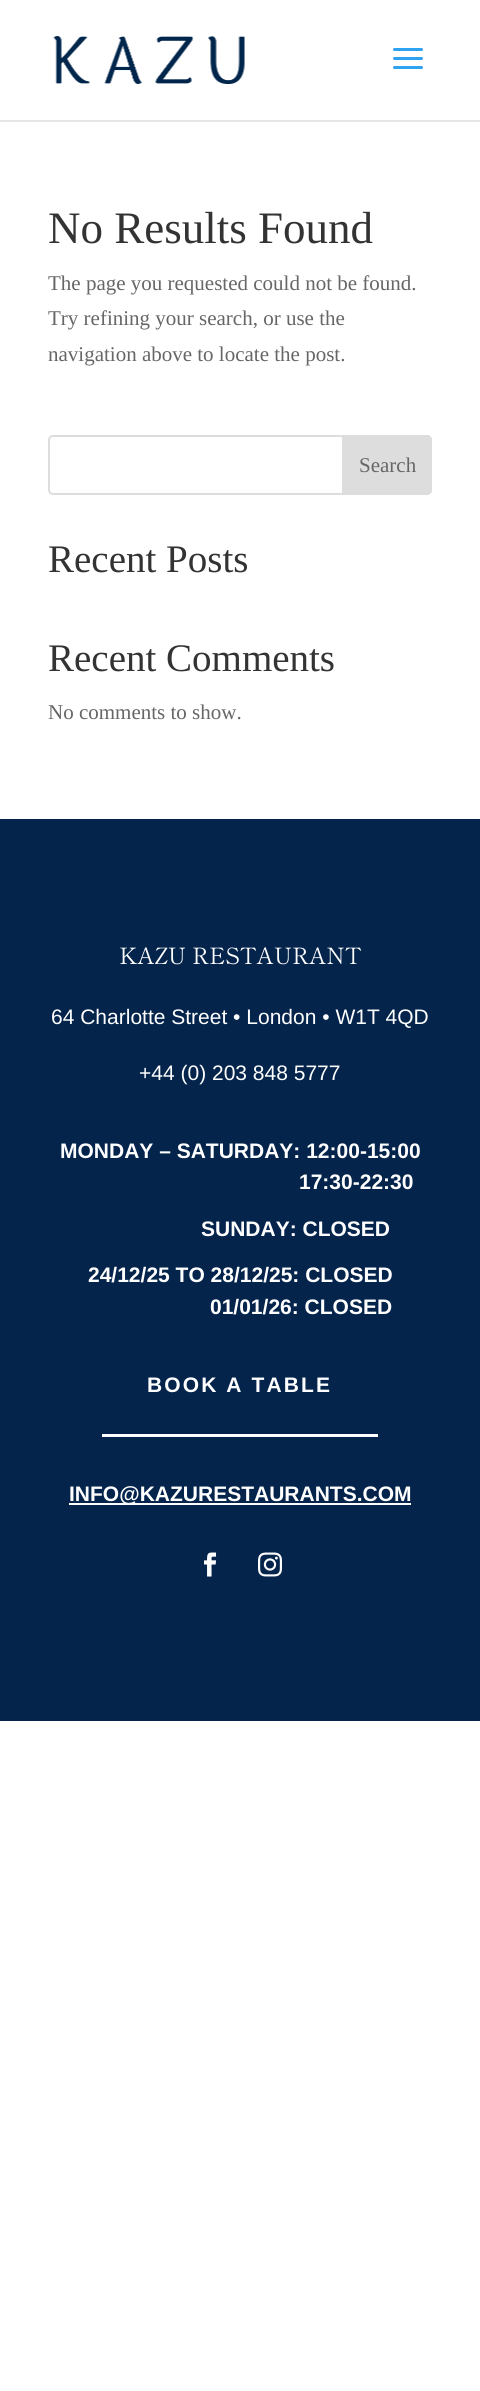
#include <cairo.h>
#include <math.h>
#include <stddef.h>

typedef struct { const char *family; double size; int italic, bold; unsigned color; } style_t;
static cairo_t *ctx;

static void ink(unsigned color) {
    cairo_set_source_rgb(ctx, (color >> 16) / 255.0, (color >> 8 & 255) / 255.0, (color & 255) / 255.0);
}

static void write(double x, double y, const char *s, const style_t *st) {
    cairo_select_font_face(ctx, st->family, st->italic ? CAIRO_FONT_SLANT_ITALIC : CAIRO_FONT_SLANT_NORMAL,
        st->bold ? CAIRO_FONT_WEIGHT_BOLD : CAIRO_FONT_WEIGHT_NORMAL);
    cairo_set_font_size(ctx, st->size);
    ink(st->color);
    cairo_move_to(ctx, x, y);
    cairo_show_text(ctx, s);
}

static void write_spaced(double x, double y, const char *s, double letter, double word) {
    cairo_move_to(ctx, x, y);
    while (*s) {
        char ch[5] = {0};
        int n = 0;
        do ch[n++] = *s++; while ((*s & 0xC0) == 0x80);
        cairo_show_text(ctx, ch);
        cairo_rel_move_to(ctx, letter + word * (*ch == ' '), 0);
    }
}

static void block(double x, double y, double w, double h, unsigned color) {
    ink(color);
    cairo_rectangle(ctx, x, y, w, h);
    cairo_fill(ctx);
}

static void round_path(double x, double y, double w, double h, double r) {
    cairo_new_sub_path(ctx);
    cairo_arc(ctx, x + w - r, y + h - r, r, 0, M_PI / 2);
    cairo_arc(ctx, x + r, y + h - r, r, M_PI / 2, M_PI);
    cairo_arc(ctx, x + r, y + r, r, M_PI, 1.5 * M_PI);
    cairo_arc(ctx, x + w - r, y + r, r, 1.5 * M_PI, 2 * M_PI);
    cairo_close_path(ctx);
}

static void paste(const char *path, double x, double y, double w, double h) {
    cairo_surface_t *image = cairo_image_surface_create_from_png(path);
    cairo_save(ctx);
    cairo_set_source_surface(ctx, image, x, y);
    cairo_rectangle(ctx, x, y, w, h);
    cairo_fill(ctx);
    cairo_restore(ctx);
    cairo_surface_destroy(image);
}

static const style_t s1 = {"Liberation Serif", 45, 0, 0, 0x333333};
static const style_t s2 = {"Liberation Serif", 21, 0, 0, 0x666666};
static const style_t s3 = {"Liberation Serif", 39, 0, 0, 0x333333};
static const style_t s4 = {"Shippori Mincho", 22.5, 0, 0, 0xffffff};
static const style_t s5 = {"Liberation Sans", 21, 0, 0, 0xffffff};
static const style_t s6 = {"Liberation Sans", 21, 0, 1, 0xffffff};

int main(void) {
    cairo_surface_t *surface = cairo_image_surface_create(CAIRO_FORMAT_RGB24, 480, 2391);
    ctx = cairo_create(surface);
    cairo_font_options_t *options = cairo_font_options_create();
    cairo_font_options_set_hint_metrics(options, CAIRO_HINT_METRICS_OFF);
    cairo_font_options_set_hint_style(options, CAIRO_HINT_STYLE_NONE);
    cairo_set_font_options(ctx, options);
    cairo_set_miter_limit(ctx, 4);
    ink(0xffffff);
    cairo_paint(ctx);
    block(0, 120, 480, 2, 0xe6e6e6);
    paste("pic1.png", 53, 36, 192, 48);
    paste("pic2.png", 393, 48, 30, 21);
    write(48, 243, "No Results Found", &s1);
    write(48, 290, "The page you requested could not be found.", &s2);
    write(48, 325, "Try refining your search, or use the", &s2);
    write(48, 361, "navigation above to locate the post.", &s2);
    round_path(49, 436, 382, 58, 4);
    ink(0xdddddd);
    cairo_stroke(ctx);
    cairo_new_path(ctx);
    cairo_move_to(ctx, 343, 436);
    cairo_line_to(ctx, 427, 436);
    cairo_curve_to(ctx, 429, 436, 431, 438, 431, 440);
    cairo_line_to(ctx, 431, 490);
    cairo_curve_to(ctx, 431, 492, 429, 494, 427, 494);
    cairo_line_to(ctx, 343, 494);
    cairo_close_path(ctx);
    cairo_fill_preserve(ctx);
    cairo_stroke(ctx);
    write(359, 472, "Search", &s2);
    write(48, 572, "Recent Posts", &s3);
    write(48, 671, "Recent Comments", &s3);
    write(48, 719, "No comments to show.", &s2);
    block(0, 819, 480, 902, 0x04244c);
    write(119, 964, "KAZU RESTAURANT", &s4);
    write(51, 1024, "64 Charlotte Street • London • W1T 4QD", &s5);
    write(139, 1080, "+44 (0) 203 848 5777", &s5);
    write(60, 1158, "MONDAY – SATURDAY: 12:00-15:00", &s6);
    write(299, 1189, "17:30-22:30", &s6);
    write(201, 1236, "SUNDAY: CLOSED", &s6);
    write(88, 1282, "24/12/25 TO 28/12/25: CLOSED", &s6);
    write(210, 1314, "01/01/26: CLOSED", &s6);
    block(102, 1434, 276, 3, 0xffffff);
    write_spaced(147, 1392, "BOOK A TABLE", 2.1, 0);
    block(69, 1503, 342, 2, 0xffffff);
    write(69, 1501, "INFO@KAZURESTAURANTS.COM", &s6);
    paste("pic3.png", 204, 1552, 13, 25);
    paste("pic4.png", 258, 1552, 24, 25);
    cairo_surface_write_to_png(surface, "screenshot.png");
    cairo_font_options_destroy(options);
    cairo_destroy(ctx);
    cairo_surface_destroy(surface);
    return 0;
}
